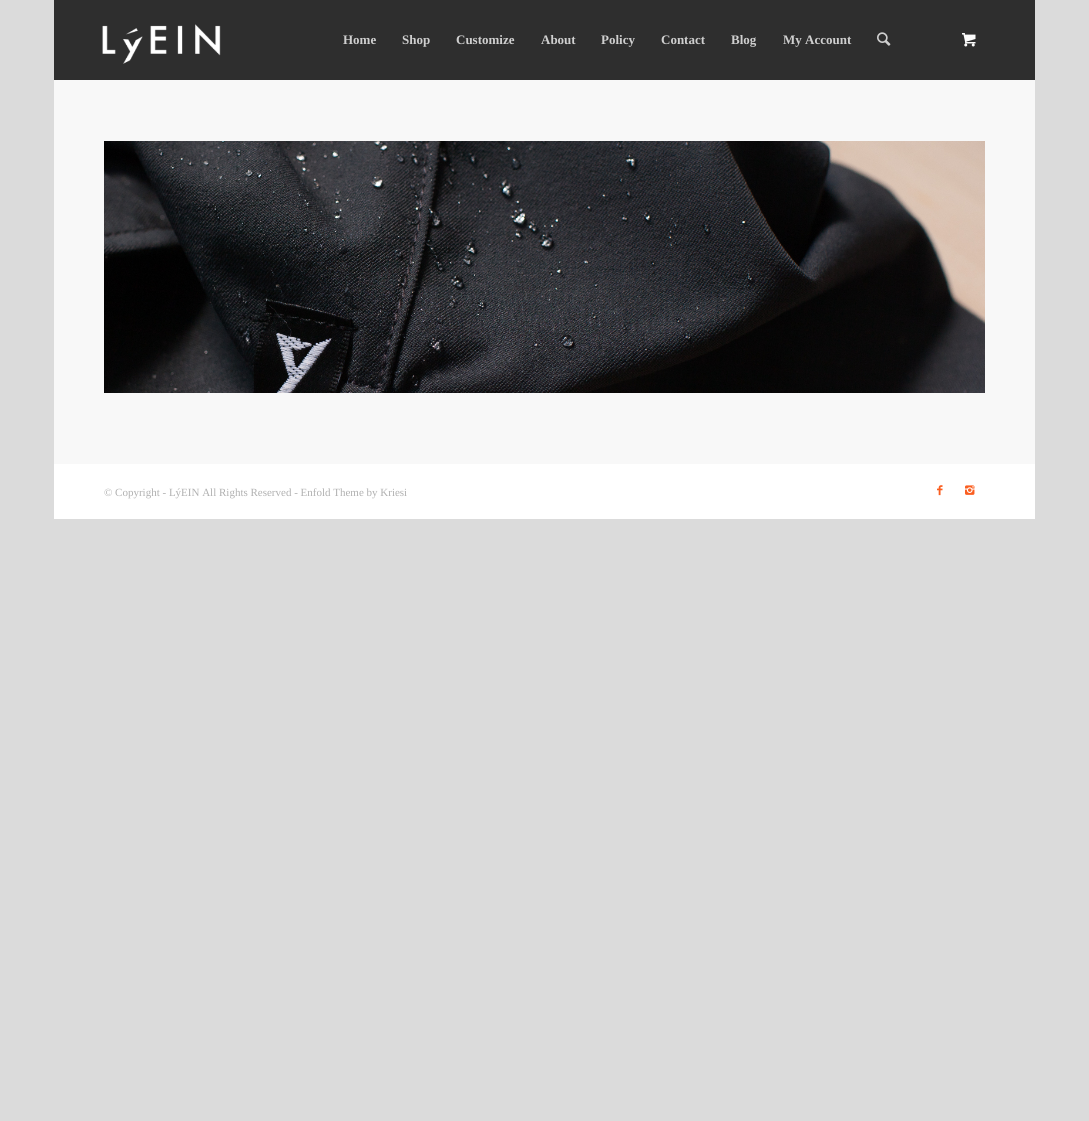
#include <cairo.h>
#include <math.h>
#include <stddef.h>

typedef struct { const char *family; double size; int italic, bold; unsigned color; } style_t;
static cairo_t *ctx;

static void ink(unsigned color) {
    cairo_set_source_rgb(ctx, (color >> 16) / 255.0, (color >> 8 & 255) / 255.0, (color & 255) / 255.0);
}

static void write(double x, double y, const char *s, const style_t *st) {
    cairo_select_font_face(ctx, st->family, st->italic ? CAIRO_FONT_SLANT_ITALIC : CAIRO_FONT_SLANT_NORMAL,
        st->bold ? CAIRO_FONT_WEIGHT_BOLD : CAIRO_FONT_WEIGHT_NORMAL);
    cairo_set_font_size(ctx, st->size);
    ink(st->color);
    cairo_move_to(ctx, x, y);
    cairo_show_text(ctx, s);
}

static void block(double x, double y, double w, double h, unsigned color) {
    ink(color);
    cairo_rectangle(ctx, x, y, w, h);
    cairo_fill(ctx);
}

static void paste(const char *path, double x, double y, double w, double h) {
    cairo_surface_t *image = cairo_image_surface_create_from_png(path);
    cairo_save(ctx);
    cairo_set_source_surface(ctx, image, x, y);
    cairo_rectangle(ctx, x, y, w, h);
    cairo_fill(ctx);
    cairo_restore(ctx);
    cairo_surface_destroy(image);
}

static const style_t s1 = {"Liberation Serif", 13, 0, 1, 0xcfcfcf};
static const style_t s2 = {"Liberation Serif", 11, 0, 0, 0xb0b0b0};

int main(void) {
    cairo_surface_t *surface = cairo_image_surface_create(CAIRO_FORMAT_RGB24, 1089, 1121);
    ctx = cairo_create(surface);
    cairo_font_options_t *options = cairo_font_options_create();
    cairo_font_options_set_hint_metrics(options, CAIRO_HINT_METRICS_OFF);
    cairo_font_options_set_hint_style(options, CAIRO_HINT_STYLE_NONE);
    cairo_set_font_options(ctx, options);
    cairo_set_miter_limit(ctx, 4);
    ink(0xdbdbdb);
    cairo_paint(ctx);
    block(54, 0, 981, 80, 0x2e2e2e);
    paste("pic1.png", 102, 24, 119, 40);
    write(343, 44, "Home", &s1);
    write(402, 44, "Shop", &s1);
    write(456, 44, "Customize", &s1);
    write(541, 44, "About", &s1);
    write(601, 44, "Policy", &s1);
    write(661, 44, "Contact", &s1);
    write(731, 44, "Blog", &s1);
    write(783, 44, "My Account", &s1);
    paste("pic2.png", 877, 32, 14, 14);
    paste("pic3.png", 962, 33, 14, 14);
    block(54, 80, 981, 384, 0xf8f8f8);
    paste("pic4.png", 104, 141, 881, 252);
    block(54, 464, 981, 55, 0xffffff);
    write(104, 496, "© Copyright - LýEIN All Rights Reserved - Enfold Theme by Kriesi", &s2);
    paste("pic5.png", 937, 485, 6, 11);
    paste("pic6.png", 965, 485, 10, 10);
    cairo_surface_write_to_png(surface, "screenshot.png");
    cairo_font_options_destroy(options);
    cairo_destroy(ctx);
    cairo_surface_destroy(surface);
    return 0;
}
